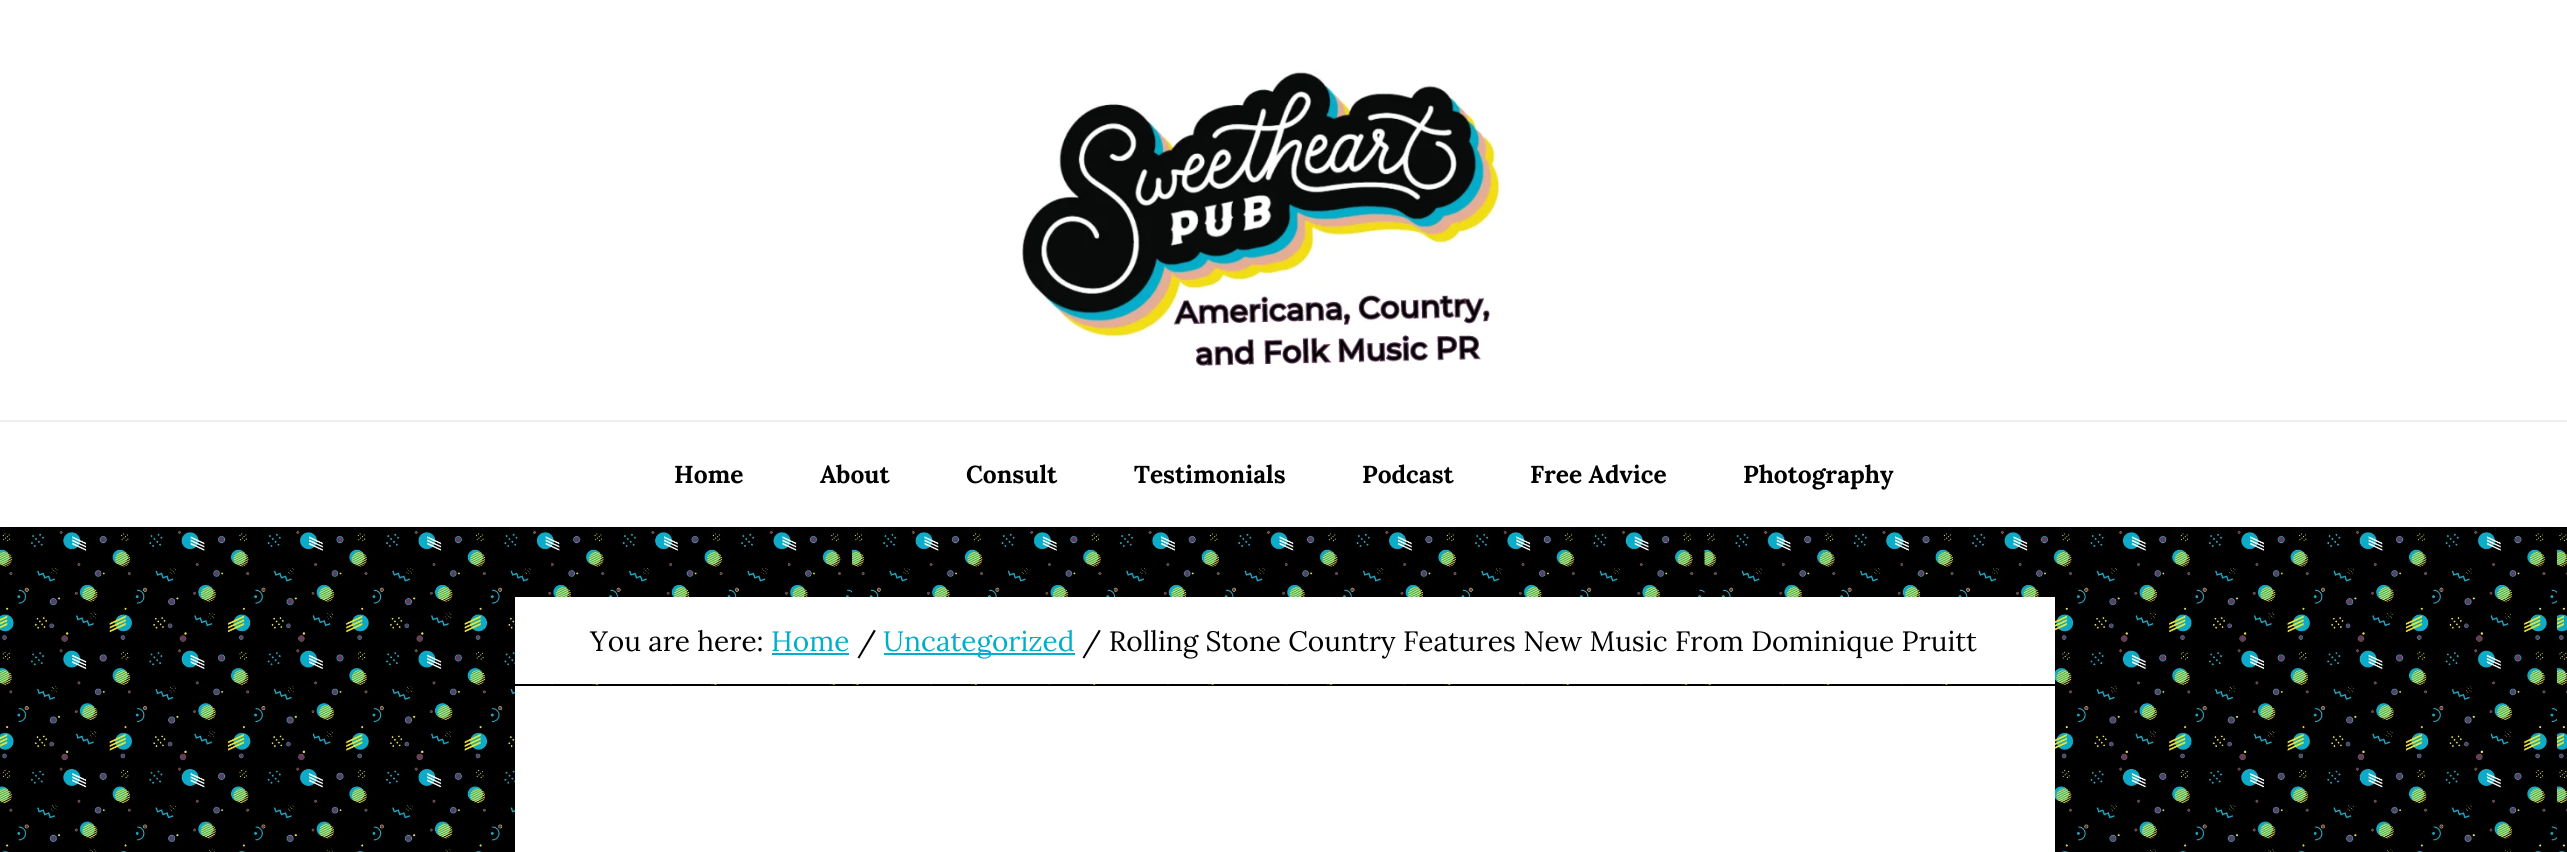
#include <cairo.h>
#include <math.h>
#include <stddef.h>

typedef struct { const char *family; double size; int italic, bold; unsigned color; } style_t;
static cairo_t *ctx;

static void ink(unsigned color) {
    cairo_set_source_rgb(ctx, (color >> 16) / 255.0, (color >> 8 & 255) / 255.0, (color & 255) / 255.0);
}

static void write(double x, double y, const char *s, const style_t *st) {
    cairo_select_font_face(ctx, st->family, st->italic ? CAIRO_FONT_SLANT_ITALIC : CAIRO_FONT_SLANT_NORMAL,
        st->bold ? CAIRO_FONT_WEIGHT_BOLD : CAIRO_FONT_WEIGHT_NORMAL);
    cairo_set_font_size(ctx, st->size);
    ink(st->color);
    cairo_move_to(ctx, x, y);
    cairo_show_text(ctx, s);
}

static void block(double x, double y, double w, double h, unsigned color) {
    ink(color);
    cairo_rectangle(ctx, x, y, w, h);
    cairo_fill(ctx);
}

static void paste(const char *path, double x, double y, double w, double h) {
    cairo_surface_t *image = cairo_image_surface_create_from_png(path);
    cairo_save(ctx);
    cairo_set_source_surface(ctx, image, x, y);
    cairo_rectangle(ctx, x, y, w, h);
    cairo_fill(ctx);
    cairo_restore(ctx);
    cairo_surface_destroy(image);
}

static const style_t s1 = {"Lora", 24.5, 0, 1, 0x000000};
static const style_t s2 = {"Lora", 28, 0, 0, 0x000000};
static const style_t s3 = {"Lora", 28, 0, 0, 0x02adcb};

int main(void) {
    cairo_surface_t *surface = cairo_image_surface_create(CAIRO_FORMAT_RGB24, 2567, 852);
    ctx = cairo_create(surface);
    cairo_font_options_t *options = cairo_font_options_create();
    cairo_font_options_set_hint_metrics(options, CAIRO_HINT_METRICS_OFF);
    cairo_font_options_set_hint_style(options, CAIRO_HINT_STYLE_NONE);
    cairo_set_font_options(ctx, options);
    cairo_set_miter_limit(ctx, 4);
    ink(0xffffff);
    cairo_paint(ctx);
    paste("pic1.png", 0, 527, 2567, 325);
    paste("pic2.png", 1022, 70, 480, 296);
    block(0, 420, 2567, 2, 0xeeeeee);
    write(674, 483, "Home", &s1);
    write(820, 483, "About", &s1);
    write(966, 483, "Consult", &s1);
    write(1134, 483, "Testimonials", &s1);
    write(1362, 483, "Podcast", &s1);
    write(1530, 483, "Free Advice", &s1);
    write(1743, 483, "Photography", &s1);
    block(515, 597, 1540, 87, 0xffffff);
    write(590, 651, "You are here:", &s2);
    write(771, 651, "Home", &s3);
    block(772, 653, 77, 2, 0x02adcb);
    write(857, 651, "/", &s2);
    block(884, 653, 191, 2, 0x02adcb);
    write(883, 651, "Uncategorized", &s3);
    write(1082, 651, "/ Rolling Stone Country Features New Music From Dominique Pruitt", &s2);
    block(515, 686, 1540, 166, 0xffffff);
    cairo_surface_write_to_png(surface, "screenshot.png");
    cairo_font_options_destroy(options);
    cairo_destroy(ctx);
    cairo_surface_destroy(surface);
    return 0;
}
